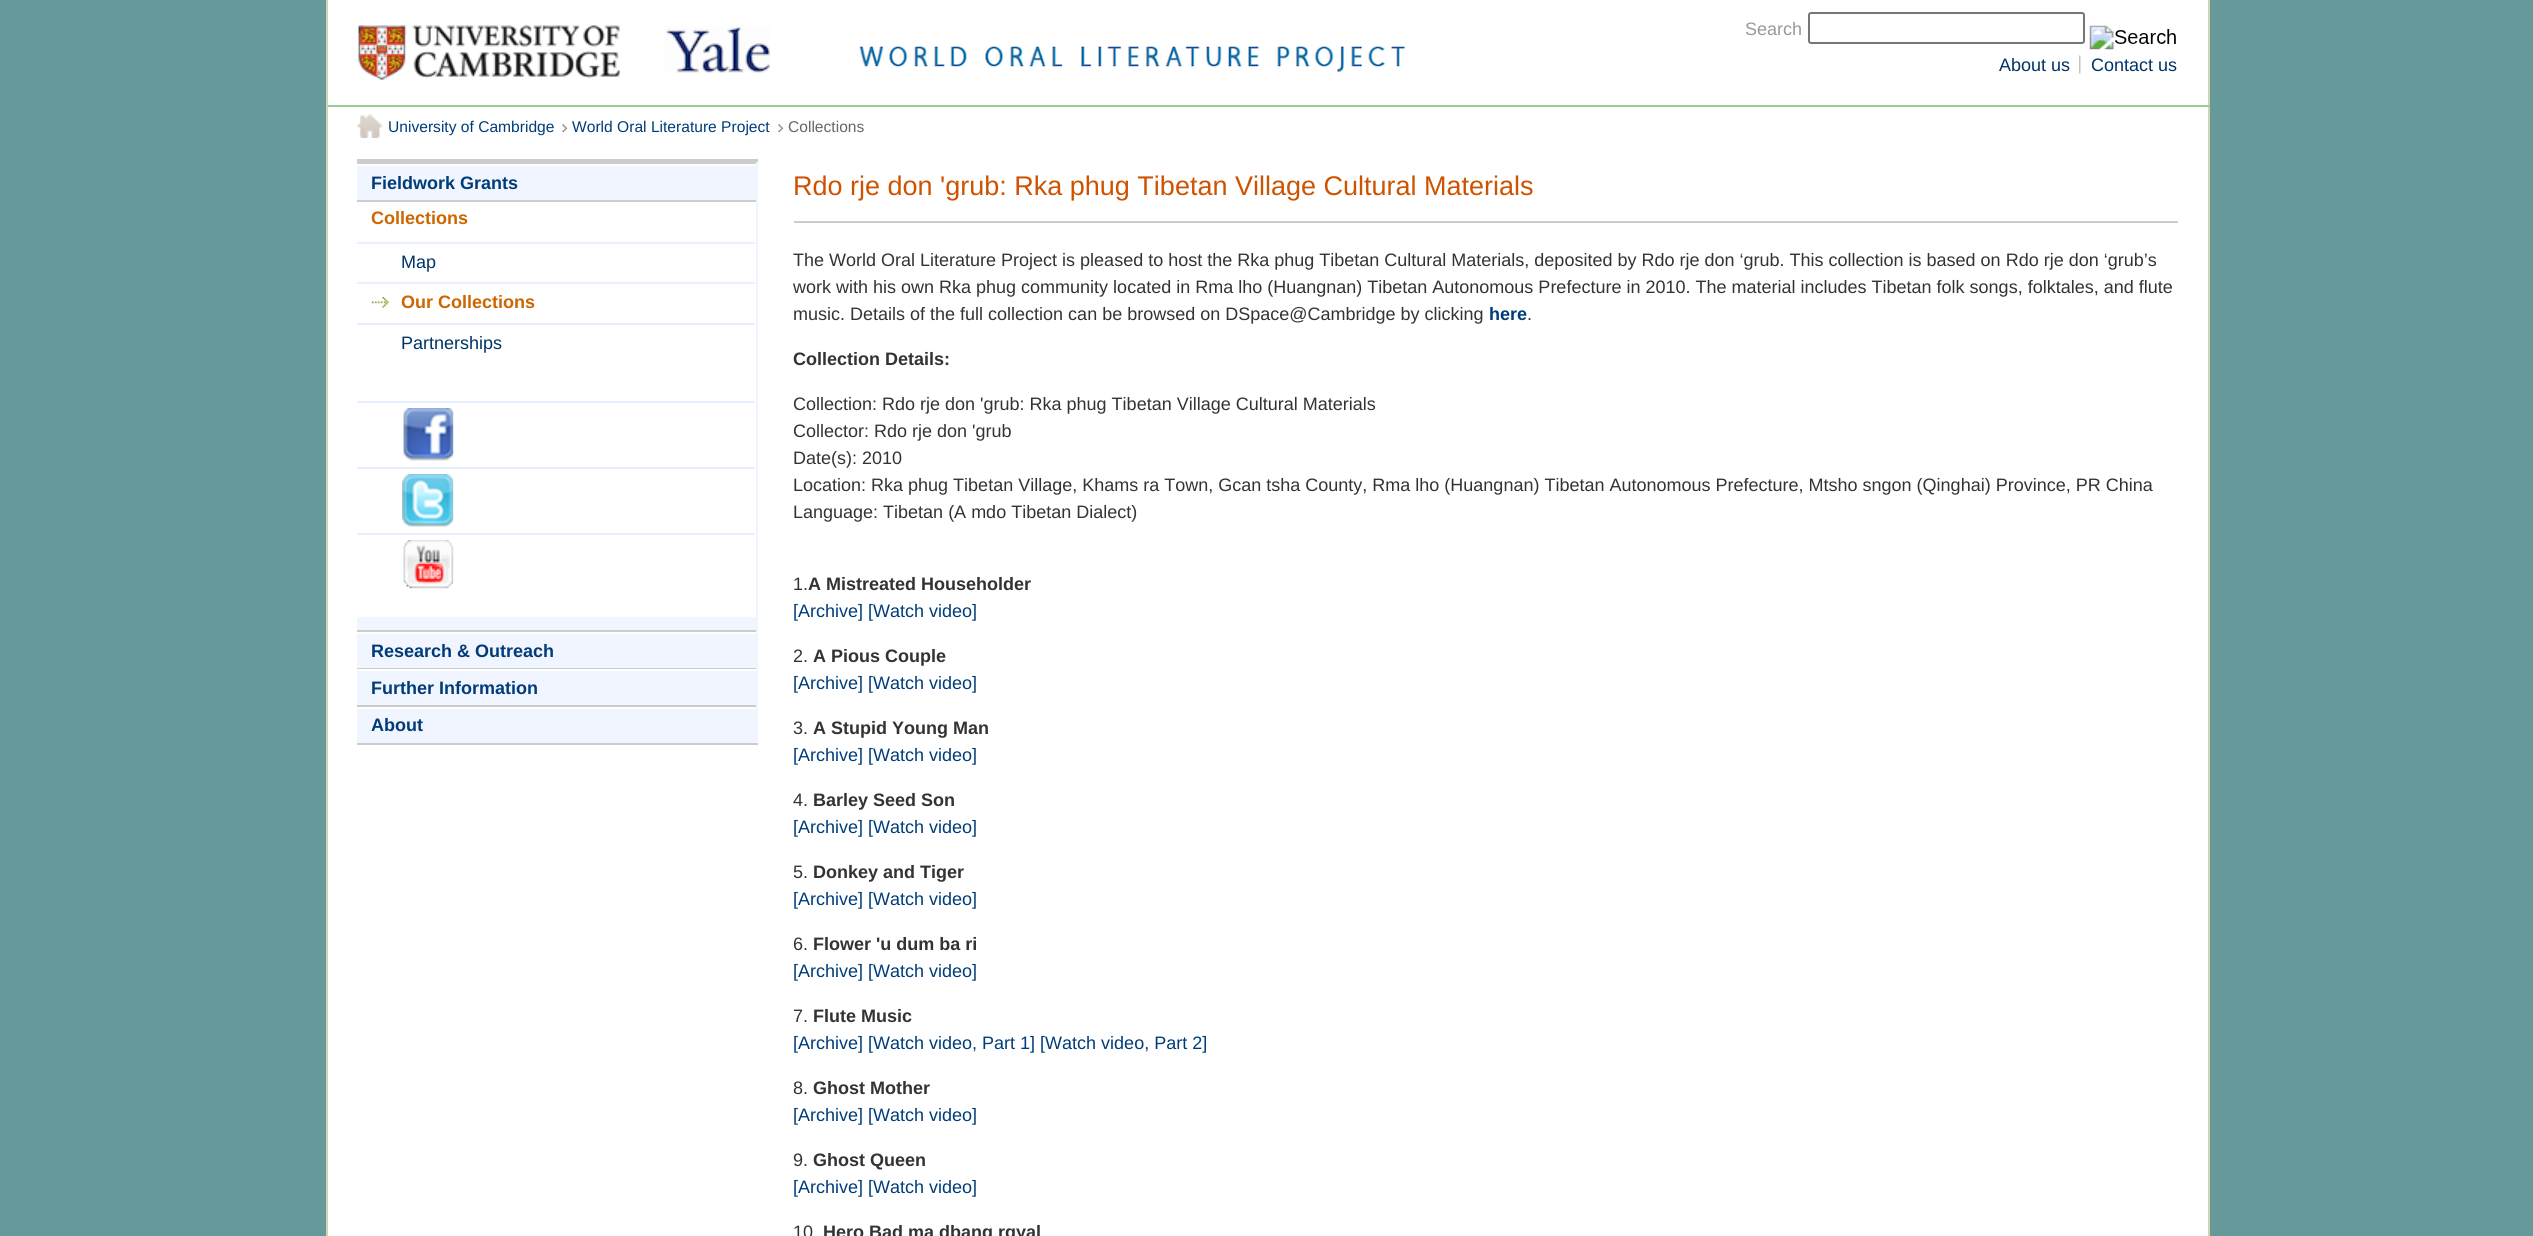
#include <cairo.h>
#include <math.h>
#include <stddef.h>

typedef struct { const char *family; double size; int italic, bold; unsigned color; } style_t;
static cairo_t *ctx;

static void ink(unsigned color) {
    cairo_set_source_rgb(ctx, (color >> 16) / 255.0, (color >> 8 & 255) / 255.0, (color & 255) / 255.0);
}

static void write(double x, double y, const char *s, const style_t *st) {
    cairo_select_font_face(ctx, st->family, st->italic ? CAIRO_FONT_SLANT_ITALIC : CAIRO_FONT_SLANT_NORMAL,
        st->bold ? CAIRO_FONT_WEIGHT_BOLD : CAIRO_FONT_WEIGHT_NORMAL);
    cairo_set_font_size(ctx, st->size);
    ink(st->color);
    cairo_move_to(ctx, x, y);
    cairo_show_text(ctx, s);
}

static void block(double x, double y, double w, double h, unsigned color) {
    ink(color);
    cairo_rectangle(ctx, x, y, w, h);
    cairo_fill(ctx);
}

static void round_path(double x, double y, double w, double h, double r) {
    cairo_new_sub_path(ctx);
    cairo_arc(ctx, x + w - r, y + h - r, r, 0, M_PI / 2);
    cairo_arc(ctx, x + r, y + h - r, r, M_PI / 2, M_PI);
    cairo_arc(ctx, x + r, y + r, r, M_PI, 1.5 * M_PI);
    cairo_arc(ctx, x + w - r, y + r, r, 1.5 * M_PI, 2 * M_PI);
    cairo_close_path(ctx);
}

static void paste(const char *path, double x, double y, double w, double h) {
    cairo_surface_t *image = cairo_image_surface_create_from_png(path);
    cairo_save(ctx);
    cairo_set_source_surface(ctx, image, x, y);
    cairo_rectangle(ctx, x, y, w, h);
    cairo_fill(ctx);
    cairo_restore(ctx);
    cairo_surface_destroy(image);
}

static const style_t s1 = {"Liberation Sans", 18, 0, 0, 0x999999};
static const style_t s2 = {"Liberation Sans", 18, 0, 0, 0x003366};
static const style_t s3 = {"Liberation Sans", 15.6, 0, 0, 0x003c79};
static const style_t s4 = {"Liberation Sans", 15.6, 0, 0, 0x666666};
static const style_t s5 = {"Liberation Sans", 18, 0, 1, 0x003c79};
static const style_t s6 = {"Liberation Sans", 18, 0, 1, 0xcc6600};
static const style_t s7 = {"Liberation Sans", 27, 0, 0, 0xcf5200};
static const style_t s8 = {"Liberation Sans", 18, 0, 0, 0x333333};
static const style_t s9 = {"Liberation Sans", 18, 0, 1, 0x333333};
static const style_t s10 = {"Liberation Sans", 18, 0, 0, 0x003c79};

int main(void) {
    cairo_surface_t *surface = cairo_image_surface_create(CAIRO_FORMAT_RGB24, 2533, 1236);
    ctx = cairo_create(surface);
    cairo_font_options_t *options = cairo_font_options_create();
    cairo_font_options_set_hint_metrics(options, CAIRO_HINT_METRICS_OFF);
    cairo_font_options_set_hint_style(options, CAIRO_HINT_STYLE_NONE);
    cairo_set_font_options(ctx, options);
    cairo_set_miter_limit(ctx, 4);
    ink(0x669999);
    cairo_paint(ctx);
    block(328, 0, 1880, 105, 0xffffff);
    block(2208, 0, 2, 1236, 0xd3d3b1);
    block(326, 105, 1884, 2, 0x99cc99);
    block(326, 0, 2, 1236, 0xd3d3b1);
    paste("pic1.png", 358, 25, 262, 55);
    paste("pic2.png", 665, 26, 105, 47);
    paste("pic3.png", 859, 46, 547, 27);
    write(1745, 35, "Search", &s1);
    round_path(1809, 13, 275, 30, 2);
    ink(0x767676);
    cairo_stroke(ctx);
    paste("pic4.png", 2089, 25, 87, 25);
    paste("pic5.png", 2079, 55, 2, 19);
    write(1999, 71, "About us", &s2);
    write(2091, 71, "Contact us", &s2);
    block(328, 107, 1880, 1129, 0xffffff);
    paste("pic6.png", 357, 114, 26, 24);
    write(388, 132, "University of Cambridge", &s3);
    paste("pic7.png", 562, 124, 5, 8);
    write(572, 132, "World Oral Literature Project", &s3);
    paste("pic8.png", 778, 124, 5, 8);
    write(788, 132, "Collections", &s4);
    block(357, 162, 401, 581, 0xf1f5ff);
    block(357, 159, 401, 3, 0xcccccc);
    block(357, 743, 401, 2, 0xcccccc);
    block(357, 162, 399, 2, 0xcccccc);
    block(357, 164, 399, 2, 0xffffff);
    write(371, 189, "Fieldwork Grants", &s5);
    block(357, 202, 399, 415, 0xffffff);
    block(357, 200, 399, 2, 0xcccccc);
    write(371, 224, "Collections", &s6);
    block(357, 242, 398, 2, 0xe8f0ff);
    write(401, 268, "Map", &s2);
    block(357, 282, 398, 2, 0xe8f0ff);
    paste("pic9.png", 372, 297, 17, 11);
    write(401, 308, "Our Collections", &s6);
    block(357, 323, 398, 2, 0xe8f0ff);
    write(401, 349, "Partnerships", &s2);
    block(357, 401, 398, 2, 0xe8f0ff);
    paste("pic10.png", 403, 408, 51, 53);
    block(357, 467, 398, 2, 0xe8f0ff);
    paste("pic11.png", 402, 474, 52, 53);
    block(357, 533, 398, 2, 0xe8f0ff);
    paste("pic12.png", 403, 540, 51, 49);
    block(357, 630, 399, 2, 0xcccccc);
    block(357, 632, 399, 2, 0xffffff);
    write(371, 657, "Research & Outreach", &s5);
    block(357, 668, 399, 1, 0xcccccc);
    block(357, 669, 399, 2, 0xffffff);
    write(371, 694, "Further Information", &s5);
    block(357, 705, 399, 2, 0xcccccc);
    block(357, 707, 399, 2, 0xffffff);
    write(371, 731, "About", &s5);
    block(794, 221, 1384, 2, 0xcccccc);
    write(793, 195, "Rdo rje don 'grub: Rka phug Tibetan Village Cultural Materials", &s7);
    write(793, 266, "The World Oral Literature Project is pleased to host the Rka phug Tibetan Cultural Materials, deposited by Rdo rje don ‘grub. This collection is based on Rdo rje don ‘grub’s", &s8);
    write(793, 293, "work with his own Rka phug community located in Rma lho (Huangnan) Tibetan Autonomous Prefecture in 2010. The material includes Tibetan folk songs, folktales, and flute", &s8);
    write(793, 320, "music. Details of the full collection can be browsed on DSpace@Cambridge by clicking", &s8);
    write(1489, 320, "here", &s5);
    write(1527, 320, ".", &s8);
    write(793, 365, "Collection Details:", &s9);
    write(793, 410, "Collection: Rdo rje don 'grub: Rka phug Tibetan Village Cultural Materials", &s8);
    write(793, 437, "Collector: Rdo rje don 'grub", &s8);
    write(793, 464, "Date(s): 2010", &s8);
    write(793, 491, "Location: Rka phug Tibetan Village, Khams ra Town, Gcan tsha County, Rma lho (Huangnan) Tibetan Autonomous Prefecture, Mtsho sngon (Qinghai) Province, PR China", &s8);
    write(793, 518, "Language: Tibetan (A mdo Tibetan Dialect)", &s8);
    write(793, 590, "1.", &s8);
    write(808, 590, "A Mistreated Householder", &s9);
    write(793, 617, "[Archive] [Watch video]", &s10);
    write(793, 662, "2.", &s8);
    write(813, 662, "A Pious Couple", &s9);
    write(793, 689, "[Archive] [Watch video]", &s10);
    write(793, 734, "3.", &s8);
    write(813, 734, "A Stupid Young Man", &s9);
    write(793, 761, "[Archive] [Watch video]", &s10);
    write(793, 806, "4.", &s8);
    write(813, 806, "Barley Seed Son", &s9);
    write(793, 833, "[Archive] [Watch video]", &s10);
    write(793, 878, "5.", &s8);
    write(813, 878, "Donkey and Tiger", &s9);
    write(793, 905, "[Archive] [Watch video]", &s10);
    write(793, 950, "6.", &s8);
    write(813, 950, "Flower 'u dum ba ri", &s9);
    write(793, 977, "[Archive] [Watch video]", &s10);
    write(793, 1022, "7.", &s8);
    write(813, 1022, "Flute Music", &s9);
    write(793, 1049, "[Archive] [Watch video, Part 1] [Watch video, Part 2]", &s10);
    write(793, 1094, "8.", &s8);
    write(813, 1094, "Ghost Mother", &s9);
    write(793, 1121, "[Archive] [Watch video]", &s10);
    write(793, 1166, "9.", &s8);
    write(813, 1166, "Ghost Queen", &s9);
    write(793, 1193, "[Archive] [Watch video]", &s10);
    write(793, 1238, "10", &s8);
    write(823, 1238, "Hero Bad ma dbang rgyal", &s9);
    cairo_surface_write_to_png(surface, "screenshot.png");
    cairo_font_options_destroy(options);
    cairo_destroy(ctx);
    cairo_surface_destroy(surface);
    return 0;
}
